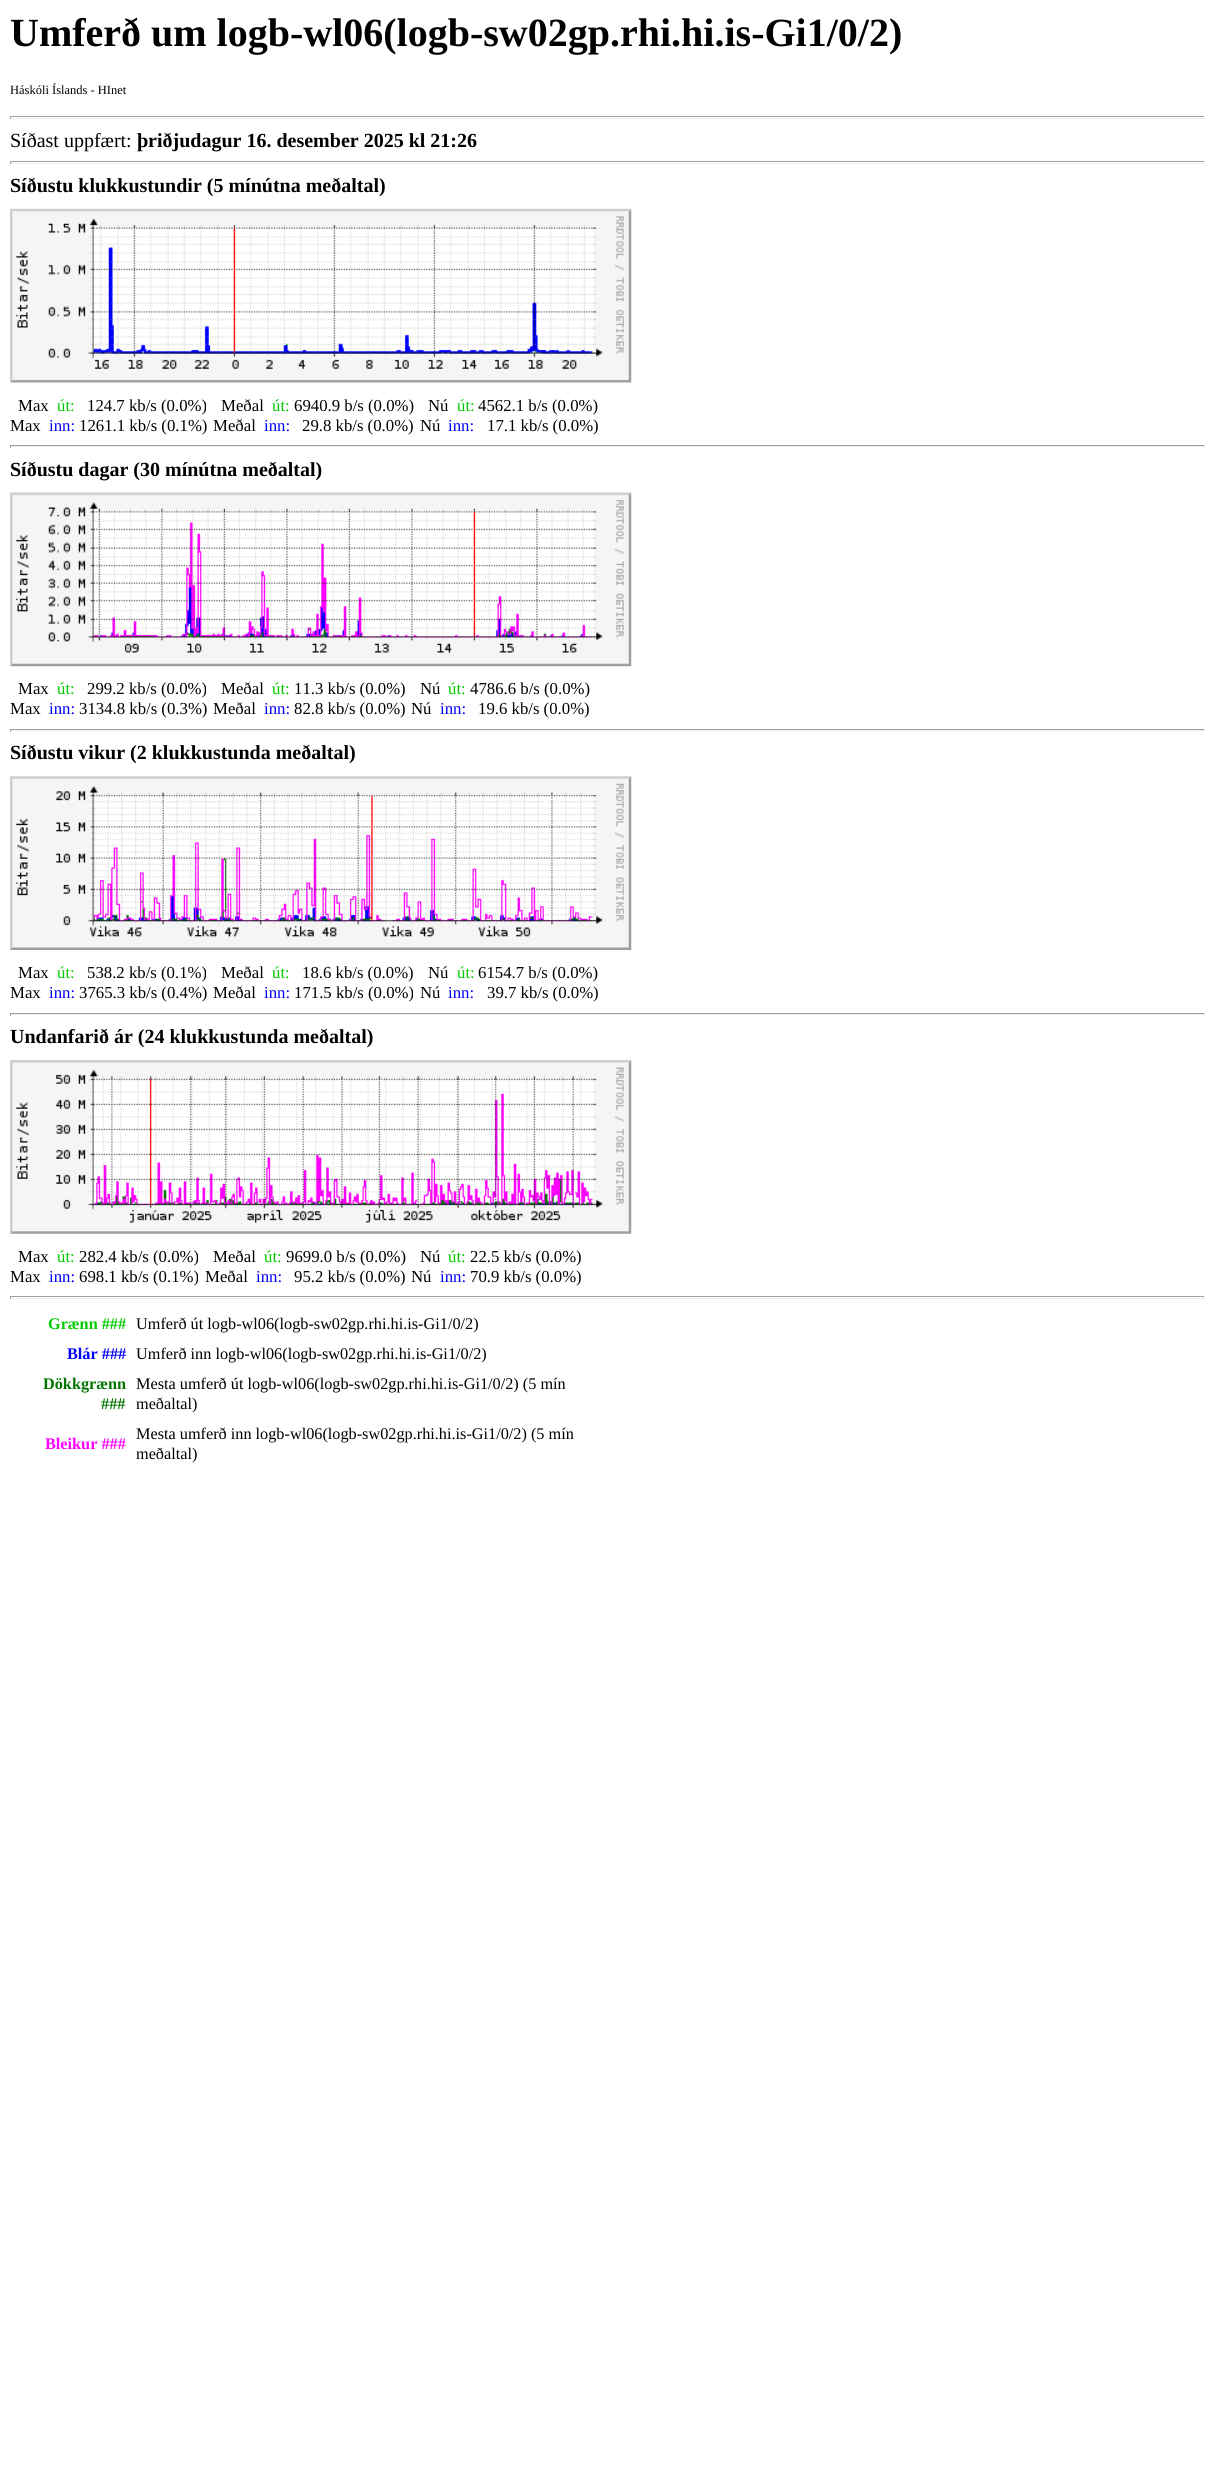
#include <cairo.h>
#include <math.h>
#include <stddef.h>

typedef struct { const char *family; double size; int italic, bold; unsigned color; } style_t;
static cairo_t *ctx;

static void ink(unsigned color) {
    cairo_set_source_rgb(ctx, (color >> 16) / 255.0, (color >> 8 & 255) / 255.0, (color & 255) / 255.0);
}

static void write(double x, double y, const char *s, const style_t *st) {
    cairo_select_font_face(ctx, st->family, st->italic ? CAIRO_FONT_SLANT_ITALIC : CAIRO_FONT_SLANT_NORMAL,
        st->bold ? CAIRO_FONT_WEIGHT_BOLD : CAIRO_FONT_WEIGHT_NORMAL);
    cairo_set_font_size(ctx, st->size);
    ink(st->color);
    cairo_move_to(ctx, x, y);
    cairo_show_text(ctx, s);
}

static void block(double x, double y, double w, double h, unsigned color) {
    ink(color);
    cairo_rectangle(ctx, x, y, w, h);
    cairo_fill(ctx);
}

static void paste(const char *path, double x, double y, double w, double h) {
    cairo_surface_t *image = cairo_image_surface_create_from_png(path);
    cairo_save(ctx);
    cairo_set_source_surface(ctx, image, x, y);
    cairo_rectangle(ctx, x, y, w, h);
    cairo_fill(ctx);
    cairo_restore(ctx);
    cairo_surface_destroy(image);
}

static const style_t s1 = {"Liberation Serif", 40, 0, 1, 0x000000};
static const style_t s2 = {"Liberation Serif", 12.5, 0, 0, 0x000000};
static const style_t s3 = {"Liberation Serif", 20, 0, 0, 0x000000};
static const style_t s4 = {"Liberation Serif", 20, 0, 1, 0x000000};
static const style_t s5 = {"Liberation Serif", 16.75, 0, 0, 0x000000};
static const style_t s6 = {"Liberation Serif", 16.75, 0, 0, 0x00cc00};
static const style_t s7 = {"Liberation Serif", 16.75, 0, 0, 0x0000ff};
static const style_t s8 = {"Liberation Serif", 16.25, 0, 1, 0x00cc00};
static const style_t s9 = {"Liberation Serif", 16.25, 0, 0, 0x000000};
static const style_t s10 = {"Liberation Serif", 16.25, 0, 1, 0x0000ff};
static const style_t s11 = {"Liberation Serif", 16.25, 0, 1, 0x007600};
static const style_t s12 = {"Liberation Serif", 16.25, 0, 1, 0xff00ff};

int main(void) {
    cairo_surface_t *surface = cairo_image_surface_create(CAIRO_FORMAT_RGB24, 1215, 2491);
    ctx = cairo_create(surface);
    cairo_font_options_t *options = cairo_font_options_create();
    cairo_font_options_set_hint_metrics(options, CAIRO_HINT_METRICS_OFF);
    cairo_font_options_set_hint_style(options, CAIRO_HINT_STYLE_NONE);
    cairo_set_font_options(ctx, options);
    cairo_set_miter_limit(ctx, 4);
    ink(0xffffff);
    cairo_paint(ctx);
    write(10, 46, "Umferð um logb-wl06(logb-sw02gp.rhi.hi.is-Gi1/0/2)", &s1);
    write(10, 94, "Háskóli Íslands - HInet", &s2);
    block(10, 116, 1195, 1, 0x9f9f9f);
    block(1204, 116, 1, 3, 0xeeeeee);
    block(10, 118, 1195, 1, 0xeeeeee);
    block(10, 116, 1, 3, 0x9f9f9f);
    write(10, 147, "Síðast uppfært:", &s3);
    write(137, 147, "þriðjudagur 16. desember 2025 kl 21:26", &s4);
    block(10, 161, 1195, 1, 0x9f9f9f);
    block(1204, 161, 1, 3, 0xeeeeee);
    block(10, 163, 1195, 1, 0xeeeeee);
    block(10, 161, 1, 3, 0x9f9f9f);
    write(10, 192, "Síðustu klukkustundir (5 mínútna meðaltal)", &s4);
    paste("pic1.png", 10, 208, 622, 175);
    write(18, 411, "Max", &s5);
    write(57, 411, "út:", &s6);
    write(87, 411, "124.7 kb/s (0.0%)", &s5);
    write(221, 411, "Meðal", &s5);
    write(272, 411, "út:", &s6);
    write(294, 411, "6940.9 b/s (0.0%)", &s5);
    write(428, 411, "Nú", &s5);
    write(457, 411, "út:", &s6);
    write(478, 411, "4562.1 b/s (0.0%)", &s5);
    write(10, 431, "Max", &s5);
    write(49, 431, "inn:", &s7);
    write(79, 431, "1261.1 kb/s (0.1%)", &s5);
    write(213, 431, "Meðal", &s5);
    write(264, 431, "inn:", &s7);
    write(302, 431, "29.8 kb/s (0.0%)", &s5);
    write(420, 431, "Nú", &s5);
    write(448, 431, "inn:", &s7);
    write(487, 431, "17.1 kb/s (0.0%)", &s5);
    block(10, 445, 1195, 1, 0x9f9f9f);
    block(1204, 445, 1, 3, 0xeeeeee);
    block(10, 446, 1195, 1, 0xeeeeee);
    block(10, 445, 1, 3, 0x9f9f9f);
    write(10, 476, "Síðustu dagar (30 mínútna meðaltal)", &s4);
    paste("pic2.png", 10, 492, 622, 175);
    write(18, 694, "Max", &s5);
    write(57, 694, "út:", &s6);
    write(87, 694, "299.2 kb/s (0.0%)", &s5);
    write(221, 694, "Meðal", &s5);
    write(272, 694, "út:", &s6);
    write(294, 694, "11.3 kb/s (0.0%)", &s5);
    write(420, 694, "Nú", &s5);
    write(448, 694, "út:", &s6);
    write(470, 694, "4786.6 b/s (0.0%)", &s5);
    write(10, 714, "Max", &s5);
    write(49, 714, "inn:", &s7);
    write(79, 714, "3134.8 kb/s (0.3%)", &s5);
    write(213, 714, "Meðal", &s5);
    write(264, 714, "inn:", &s7);
    write(294, 714, "82.8 kb/s (0.0%)", &s5);
    write(411, 714, "Nú", &s5);
    write(440, 714, "inn:", &s7);
    write(478, 714, "19.6 kb/s (0.0%)", &s5);
    block(10, 729, 1195, 1, 0x9f9f9f);
    block(1204, 729, 1, 3, 0xeeeeee);
    block(10, 730, 1195, 1, 0xeeeeee);
    block(10, 729, 1, 3, 0x9f9f9f);
    write(10, 759, "Síðustu vikur (2 klukkustunda meðaltal)", &s4);
    paste("pic3.png", 10, 776, 622, 174);
    write(18, 978, "Max", &s5);
    write(57, 978, "út:", &s6);
    write(87, 978, "538.2 kb/s (0.1%)", &s5);
    write(221, 978, "Meðal", &s5);
    write(272, 978, "út:", &s6);
    write(302, 978, "18.6 kb/s (0.0%)", &s5);
    write(428, 978, "Nú", &s5);
    write(457, 978, "út:", &s6);
    write(478, 978, "6154.7 b/s (0.0%)", &s5);
    write(10, 998, "Max", &s5);
    write(49, 998, "inn:", &s7);
    write(79, 998, "3765.3 kb/s (0.4%)", &s5);
    write(213, 998, "Meðal", &s5);
    write(264, 998, "inn:", &s7);
    write(294, 998, "171.5 kb/s (0.0%)", &s5);
    write(420, 998, "Nú", &s5);
    write(448, 998, "inn:", &s7);
    write(487, 998, "39.7 kb/s (0.0%)", &s5);
    block(10, 1013, 1195, 1, 0x9f9f9f);
    block(1204, 1013, 1, 3, 0xeeeeee);
    block(10, 1014, 1195, 1, 0xeeeeee);
    block(10, 1013, 1, 3, 0x9f9f9f);
    write(10, 1043, "Undanfarið ár (24 klukkustunda meðaltal)", &s4);
    paste("pic4.png", 10, 1060, 622, 174);
    write(18, 1262, "Max", &s5);
    write(57, 1262, "út:", &s6);
    write(79, 1262, "282.4 kb/s (0.0%)", &s5);
    write(213, 1262, "Meðal", &s5);
    write(264, 1262, "út:", &s6);
    write(286, 1262, "9699.0 b/s (0.0%)", &s5);
    write(420, 1262, "Nú", &s5);
    write(448, 1262, "út:", &s6);
    write(470, 1262, "22.5 kb/s (0.0%)", &s5);
    write(10, 1282, "Max", &s5);
    write(49, 1282, "inn:", &s7);
    write(79, 1282, "698.1 kb/s (0.1%)", &s5);
    write(205, 1282, "Meðal", &s5);
    write(256, 1282, "inn:", &s7);
    write(294, 1282, "95.2 kb/s (0.0%)", &s5);
    write(411, 1282, "Nú", &s5);
    write(440, 1282, "inn:", &s7);
    write(470, 1282, "70.9 kb/s (0.0%)", &s5);
    block(10, 1296, 1195, 1, 0x9f9f9f);
    block(1204, 1296, 1, 3, 0xeeeeee);
    block(10, 1298, 1195, 1, 0xeeeeee);
    block(10, 1296, 1, 3, 0x9f9f9f);
    write(48, 1329, "Grænn ###", &s8);
    write(136, 1329, "Umferð út logb-wl06(logb-sw02gp.rhi.hi.is-Gi1/0/2)", &s9);
    write(67, 1359, "Blár ###", &s10);
    write(136, 1359, "Umferð inn logb-wl06(logb-sw02gp.rhi.hi.is-Gi1/0/2)", &s9);
    write(43, 1389, "Dökkgrænn", &s11);
    write(101, 1409, "###", &s11);
    write(136, 1389, "Mesta umferð út logb-wl06(logb-sw02gp.rhi.hi.is-Gi1/0/2) (5 mín", &s9);
    write(136, 1409, "meðaltal)", &s9);
    write(45, 1449, "Bleikur ###", &s12);
    write(136, 1439, "Mesta umferð inn logb-wl06(logb-sw02gp.rhi.hi.is-Gi1/0/2) (5 mín", &s9);
    write(136, 1459, "meðaltal)", &s9);
    cairo_surface_write_to_png(surface, "screenshot.png");
    cairo_font_options_destroy(options);
    cairo_destroy(ctx);
    cairo_surface_destroy(surface);
    return 0;
}
